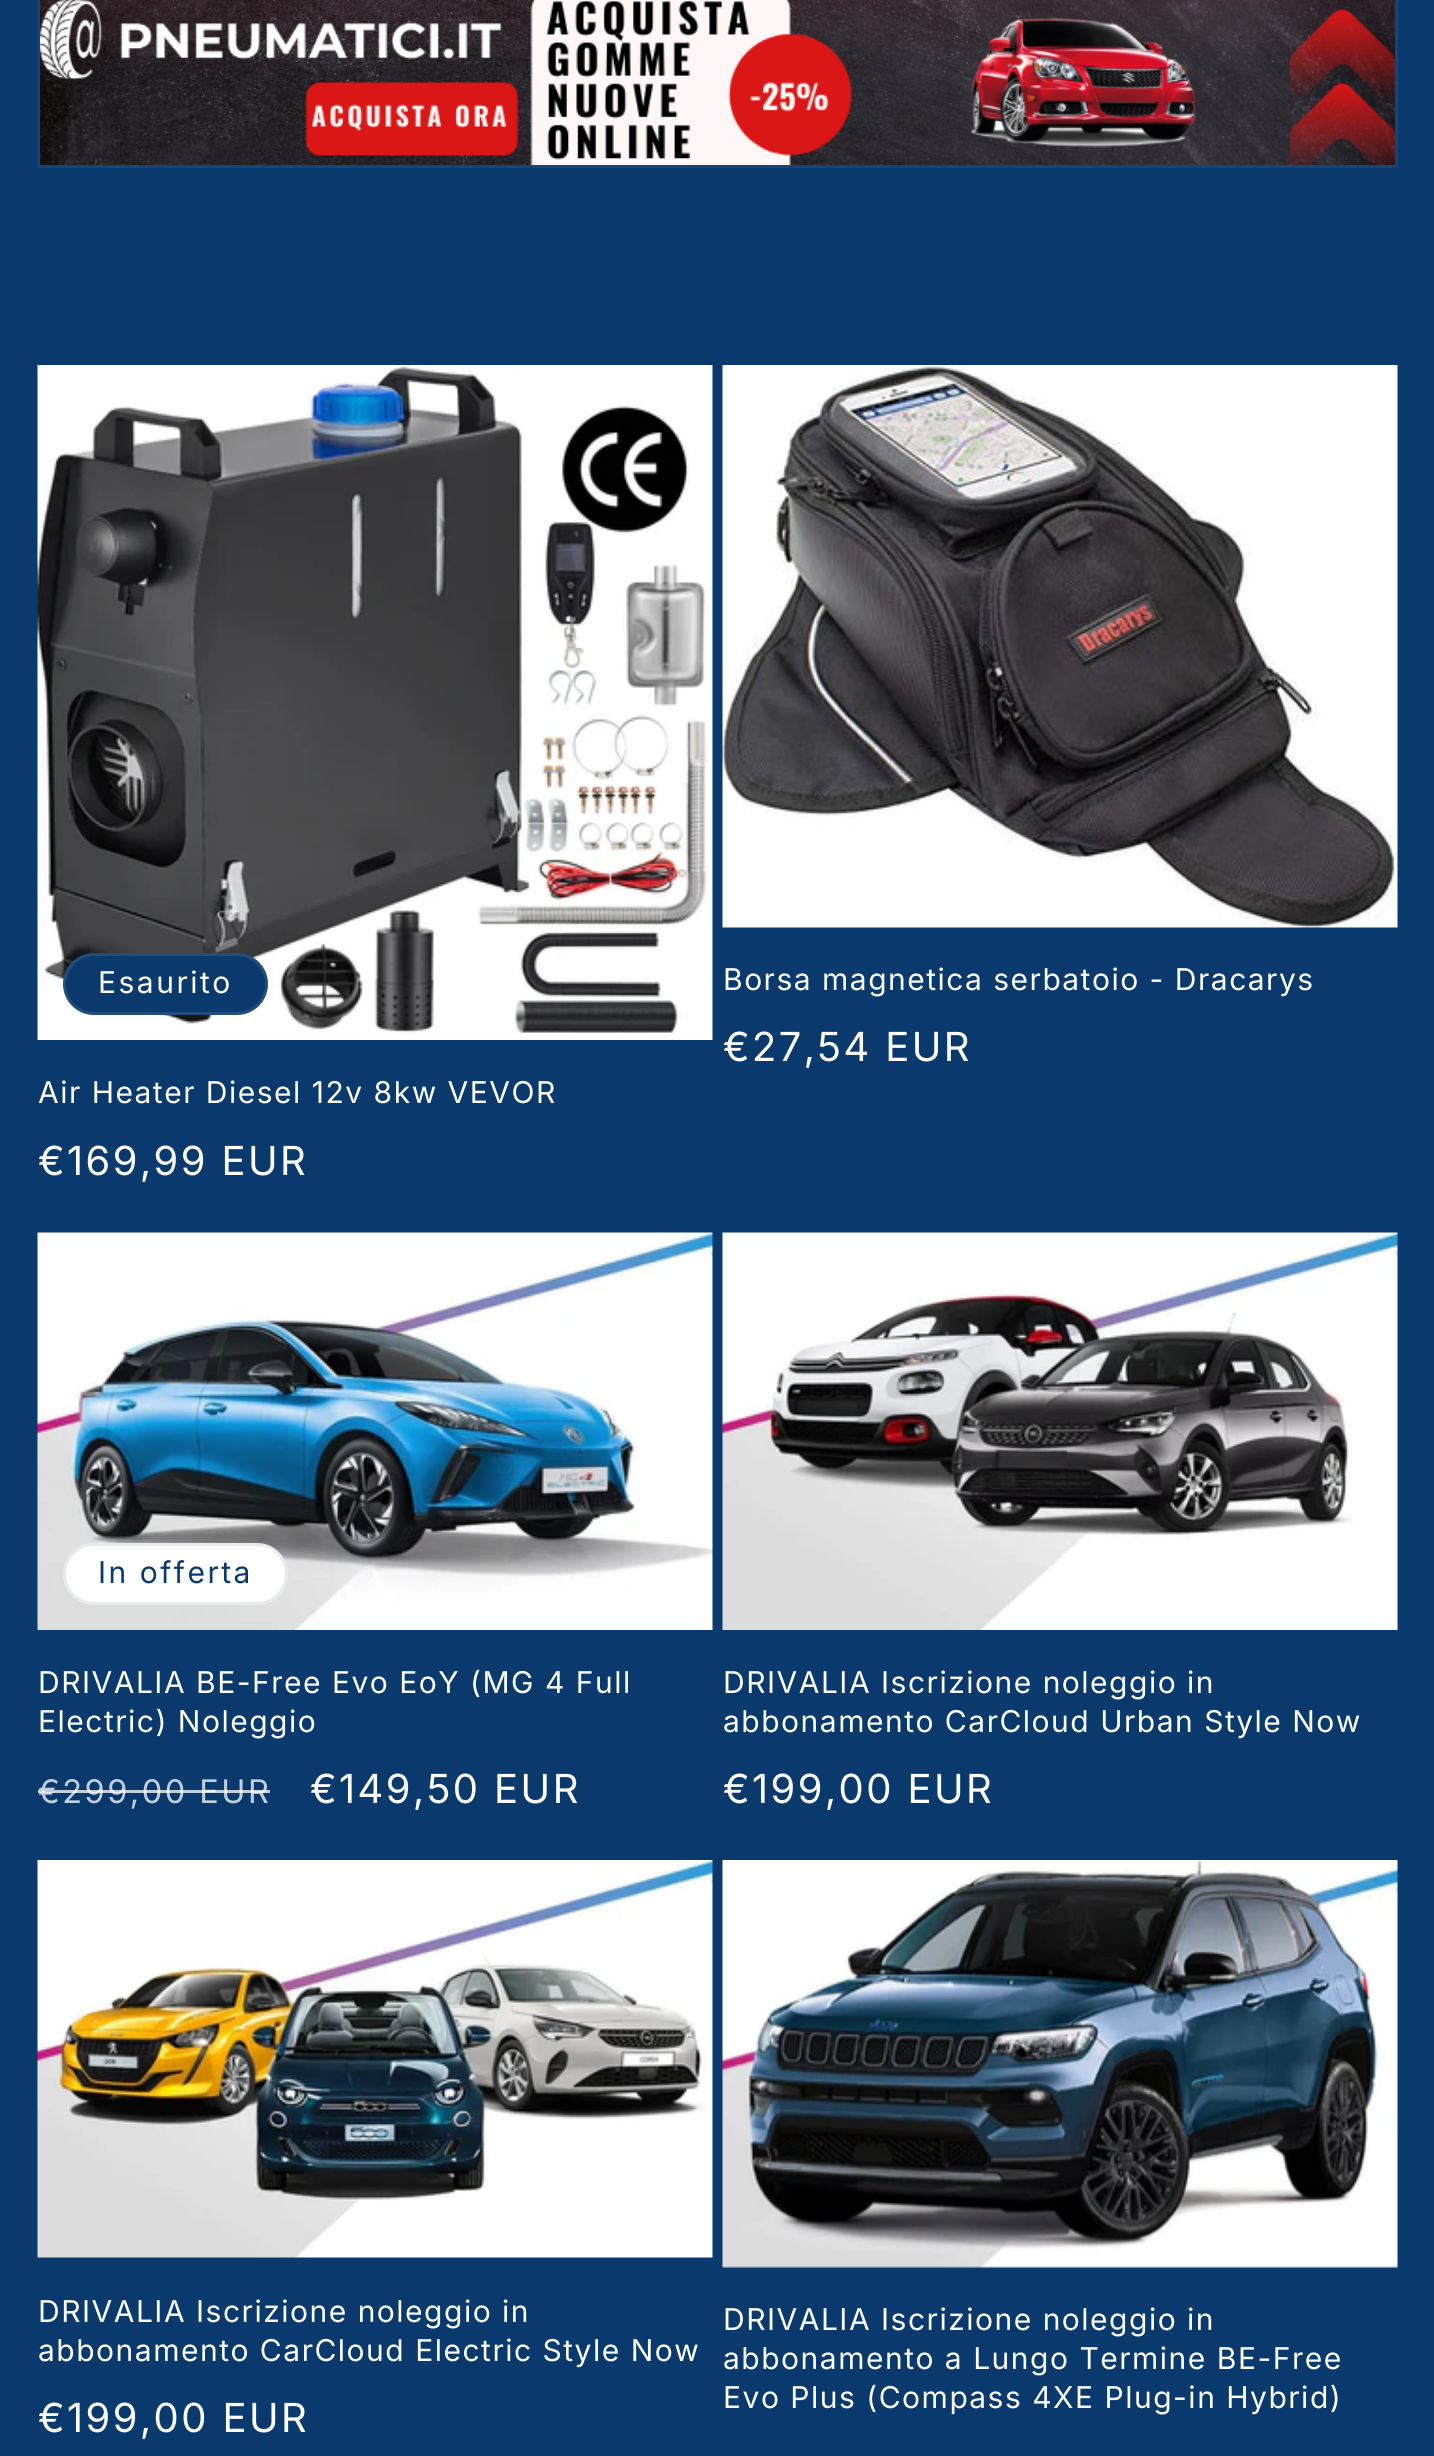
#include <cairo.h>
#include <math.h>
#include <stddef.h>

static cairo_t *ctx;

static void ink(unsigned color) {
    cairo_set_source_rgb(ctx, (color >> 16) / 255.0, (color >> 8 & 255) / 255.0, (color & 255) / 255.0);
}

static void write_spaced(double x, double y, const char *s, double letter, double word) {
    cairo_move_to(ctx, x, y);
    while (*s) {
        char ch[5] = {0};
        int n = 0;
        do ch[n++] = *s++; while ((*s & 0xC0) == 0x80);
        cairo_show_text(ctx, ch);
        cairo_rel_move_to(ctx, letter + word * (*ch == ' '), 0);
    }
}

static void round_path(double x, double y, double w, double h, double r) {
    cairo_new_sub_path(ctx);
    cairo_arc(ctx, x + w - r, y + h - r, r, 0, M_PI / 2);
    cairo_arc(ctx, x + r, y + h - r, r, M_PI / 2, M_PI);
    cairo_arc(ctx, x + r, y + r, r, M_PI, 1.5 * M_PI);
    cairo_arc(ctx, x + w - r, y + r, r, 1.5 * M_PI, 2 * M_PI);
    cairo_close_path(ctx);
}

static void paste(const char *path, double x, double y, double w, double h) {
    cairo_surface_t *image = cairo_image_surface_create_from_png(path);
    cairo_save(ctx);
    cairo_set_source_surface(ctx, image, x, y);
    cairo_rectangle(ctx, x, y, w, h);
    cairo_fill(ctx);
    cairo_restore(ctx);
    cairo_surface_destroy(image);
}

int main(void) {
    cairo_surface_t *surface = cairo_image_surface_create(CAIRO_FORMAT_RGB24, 1434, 2456);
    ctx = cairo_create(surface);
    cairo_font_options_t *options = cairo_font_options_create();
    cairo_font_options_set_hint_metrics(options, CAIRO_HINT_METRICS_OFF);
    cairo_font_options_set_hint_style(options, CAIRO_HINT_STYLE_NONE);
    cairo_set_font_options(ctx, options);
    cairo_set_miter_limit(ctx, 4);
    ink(0x0a3a6d);
    cairo_paint(ctx);
    cairo_rectangle(ctx, 39.5, -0.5, 1357, 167);
    ink(0x164474);
    cairo_set_line_width(ctx, 3);
    cairo_stroke(ctx);
    paste("pic1.png", 40, 0, 1355, 165);
    paste("pic2.png", 37, 365, 676, 675);
    ink(0x0a3a6d);
    round_path(63, 953, 205, 62, 31);
    cairo_fill(ctx);
    round_path(64.5, 954.5, 202, 59, 29.5);
    cairo_set_source_rgba(ctx, 1, 1, 1, 0.1);
    cairo_stroke(ctx);
    cairo_select_font_face(ctx, "Inter", CAIRO_FONT_SLANT_NORMAL, CAIRO_FONT_WEIGHT_NORMAL);
    cairo_set_font_size(ctx, 30);
    ink(0xffffff);
    write_spaced(98, 993, "Esaurito", 2.5, 0);
    write_spaced(38, 1103, "Air Heater Diesel 12v 8kw VEVOR", 1.5, 0);
    cairo_select_font_face(ctx, "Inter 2", CAIRO_FONT_SLANT_NORMAL, CAIRO_FONT_WEIGHT_NORMAL);
    cairo_set_font_size(ctx, 40);
    write_spaced(38, 1175, "€169,99 EUR", 2.5, 0);
    paste("pic3.png", 722, 365, 676, 563);
    cairo_select_font_face(ctx, "Inter", CAIRO_FONT_SLANT_NORMAL, CAIRO_FONT_WEIGHT_NORMAL);
    cairo_set_font_size(ctx, 30);
    write_spaced(723, 990, "Borsa magnetica serbatoio - Dracarys", 1.5, 0);
    cairo_select_font_face(ctx, "Inter 2", CAIRO_FONT_SLANT_NORMAL, CAIRO_FONT_WEIGHT_NORMAL);
    cairo_set_font_size(ctx, 40);
    write_spaced(723, 1061, "€27,54 EUR", 2.5, 0);
    paste("pic4.png", 37, 1232, 676, 398);
    round_path(63, 1543, 225, 62, 31);
    cairo_fill(ctx);
    round_path(64.5, 1544.5, 222, 59, 29.5);
    cairo_set_source_rgba(ctx, 0.039, 0.227, 0.427, 0.1);
    cairo_stroke(ctx);
    cairo_select_font_face(ctx, "Inter", CAIRO_FONT_SLANT_NORMAL, CAIRO_FONT_WEIGHT_NORMAL);
    cairo_set_font_size(ctx, 30);
    ink(0x0a3a6d);
    write_spaced(98, 1583, "In offerta", 2.5, 0);
    ink(0xffffff);
    write_spaced(38, 1693, "DRIVALIA BE-Free Evo EoY (MG 4 Full", 1.5, 0);
    write_spaced(38, 1732, "Electric) Noleggio", 1.5, 0);
    cairo_set_font_size(ctx, 32.5);
    ink(0xc2cedb);
    write_spaced(38, 1803, "€299,00 EUR", 2.5, 0);
    cairo_set_source_rgba(ctx, 1, 1, 1, 0.75);
    cairo_rectangle(ctx, 38, 1790, 232, 3);
    cairo_fill(ctx);
    cairo_select_font_face(ctx, "Inter 2", CAIRO_FONT_SLANT_NORMAL, CAIRO_FONT_WEIGHT_NORMAL);
    cairo_set_font_size(ctx, 40);
    ink(0xffffff);
    write_spaced(310, 1803, "€149,50 EUR", 2.5, 0);
    paste("pic5.png", 722, 1232, 676, 398);
    cairo_select_font_face(ctx, "Inter", CAIRO_FONT_SLANT_NORMAL, CAIRO_FONT_WEIGHT_NORMAL);
    cairo_set_font_size(ctx, 30);
    write_spaced(723, 1693, "DRIVALIA Iscrizione noleggio in", 1.5, 0);
    write_spaced(723, 1732, "abbonamento CarCloud Urban Style Now", 1.5, 0);
    cairo_select_font_face(ctx, "Inter 2", CAIRO_FONT_SLANT_NORMAL, CAIRO_FONT_WEIGHT_NORMAL);
    cairo_set_font_size(ctx, 40);
    write_spaced(723, 1803, "€199,00 EUR", 2.5, 0);
    paste("pic6.png", 37, 1860, 676, 398);
    cairo_select_font_face(ctx, "Inter", CAIRO_FONT_SLANT_NORMAL, CAIRO_FONT_WEIGHT_NORMAL);
    cairo_set_font_size(ctx, 30);
    write_spaced(38, 2322, "DRIVALIA Iscrizione noleggio in", 1.5, 0);
    write_spaced(38, 2361, "abbonamento CarCloud Electric Style Now", 1.5, 0);
    cairo_select_font_face(ctx, "Inter 2", CAIRO_FONT_SLANT_NORMAL, CAIRO_FONT_WEIGHT_NORMAL);
    cairo_set_font_size(ctx, 40);
    write_spaced(38, 2432, "€199,00 EUR", 2.5, 0);
    paste("pic7.png", 722, 1860, 676, 408);
    cairo_select_font_face(ctx, "Inter", CAIRO_FONT_SLANT_NORMAL, CAIRO_FONT_WEIGHT_NORMAL);
    cairo_set_font_size(ctx, 30);
    write_spaced(723, 2330, "DRIVALIA Iscrizione noleggio in", 1.5, 0);
    write_spaced(723, 2369, "abbonamento a Lungo Termine BE-Free", 1.5, 0);
    write_spaced(723, 2408, "Evo Plus (Compass 4XE Plug-in Hybrid)", 1.5, 0);
    cairo_surface_write_to_png(surface, "screenshot.png");
    cairo_font_options_destroy(options);
    cairo_destroy(ctx);
    cairo_surface_destroy(surface);
    return 0;
}
